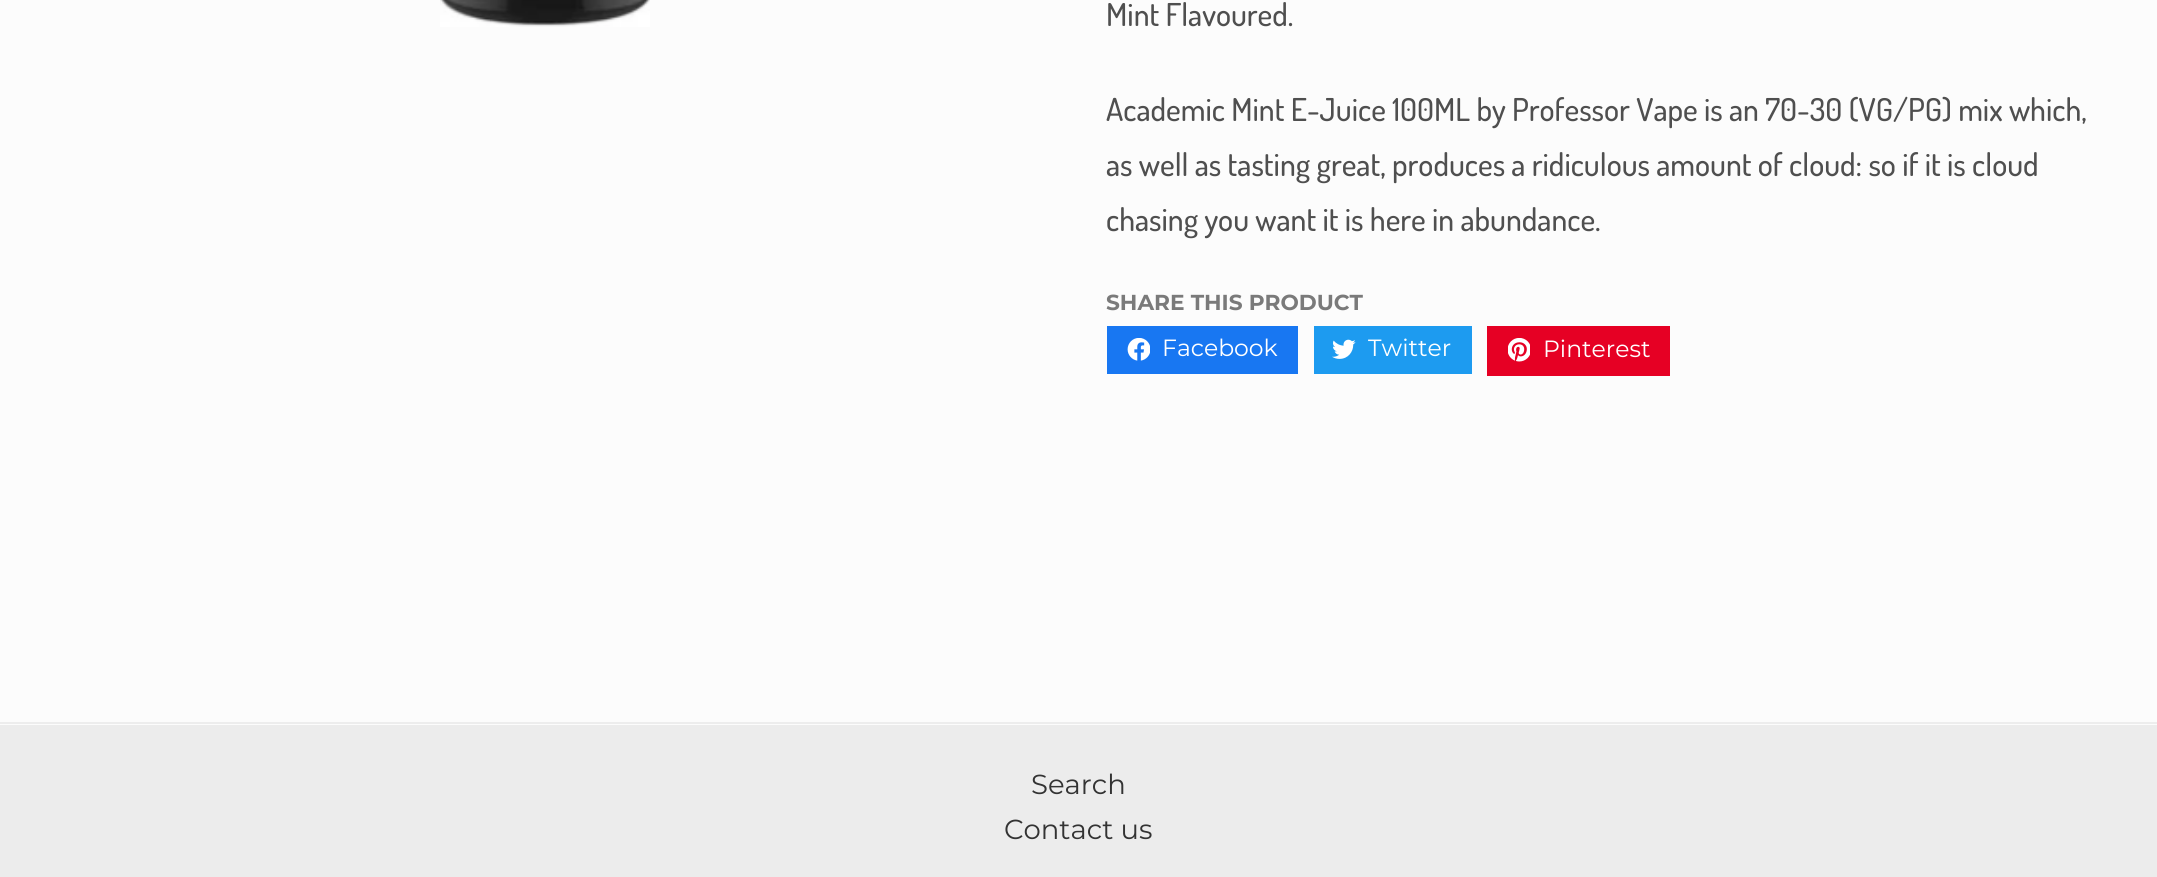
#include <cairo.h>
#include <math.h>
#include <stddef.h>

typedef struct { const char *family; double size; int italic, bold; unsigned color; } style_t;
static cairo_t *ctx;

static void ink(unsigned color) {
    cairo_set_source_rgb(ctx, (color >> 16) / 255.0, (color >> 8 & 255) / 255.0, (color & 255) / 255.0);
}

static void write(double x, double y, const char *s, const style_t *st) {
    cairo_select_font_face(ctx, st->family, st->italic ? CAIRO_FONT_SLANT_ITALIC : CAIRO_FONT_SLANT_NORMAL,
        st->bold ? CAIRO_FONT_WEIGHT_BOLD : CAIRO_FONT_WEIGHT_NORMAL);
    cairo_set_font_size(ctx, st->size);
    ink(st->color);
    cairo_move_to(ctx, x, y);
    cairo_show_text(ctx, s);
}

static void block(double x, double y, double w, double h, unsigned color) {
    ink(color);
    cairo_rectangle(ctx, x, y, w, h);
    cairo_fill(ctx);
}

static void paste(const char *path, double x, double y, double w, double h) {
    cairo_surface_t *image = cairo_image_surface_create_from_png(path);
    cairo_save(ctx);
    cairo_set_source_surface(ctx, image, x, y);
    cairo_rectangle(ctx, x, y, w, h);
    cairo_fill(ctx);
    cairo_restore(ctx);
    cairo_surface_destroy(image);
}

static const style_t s1 = {"Dosis Medium", 31.5, 0, 0, 0x4f4f4f};
static const style_t s2 = {"Montserrat", 21.7, 0, 1, 0x7a7a7a};
static const style_t s3 = {"Montserrat", 23.5, 0, 0, 0xffffff};
static const style_t s4 = {"Montserrat", 27.5, 0, 0, 0x333333};

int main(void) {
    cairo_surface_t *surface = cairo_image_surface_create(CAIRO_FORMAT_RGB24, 2157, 877);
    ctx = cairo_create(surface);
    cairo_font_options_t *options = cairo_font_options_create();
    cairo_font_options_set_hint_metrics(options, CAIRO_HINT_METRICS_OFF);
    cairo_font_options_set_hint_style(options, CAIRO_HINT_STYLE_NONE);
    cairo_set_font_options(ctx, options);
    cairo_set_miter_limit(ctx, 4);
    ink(0xececec);
    cairo_paint(ctx);
    block(0, 0, 2157, 725, 0xfcfcfc);
    paste("pic1.png", 440, 0, 210, 27);
    write(1106, 26, "Mint Flavoured.", &s1);
    write(1106, 121, "Academic Mint E-Juice 100ML by Professor Vape is an 70-30 (VG/PG) mix which,", &s1);
    write(1106, 176, "as well as tasting great, produces a ridiculous amount of cloud: so if it is cloud", &s1);
    write(1106, 231, "chasing you want it is here in abundance.", &s1);
    write(1106, 310, "SHARE THIS PRODUCT", &s2);
    block(1107, 326, 191, 48, 0x1877f2);
    paste("pic2.png", 1127, 338, 23, 23);
    write(1162, 356, "Facebook", &s3);
    block(1314, 326, 158, 48, 0x1d9bf0);
    paste("pic3.png", 1332, 339, 24, 20);
    write(1368, 356, "Twitter", &s3);
    block(1487, 326, 183, 50, 0xe60024);
    paste("pic4.png", 1508, 338, 22, 24);
    write(1543, 357, "Pinterest", &s3);
    block(0, 722, 2157, 2, 0xededed);
    write(1031, 794, "Search", &s4);
    write(1004, 839, "Contact us", &s4);
    cairo_surface_write_to_png(surface, "screenshot.png");
    cairo_font_options_destroy(options);
    cairo_destroy(ctx);
    cairo_surface_destroy(surface);
    return 0;
}
